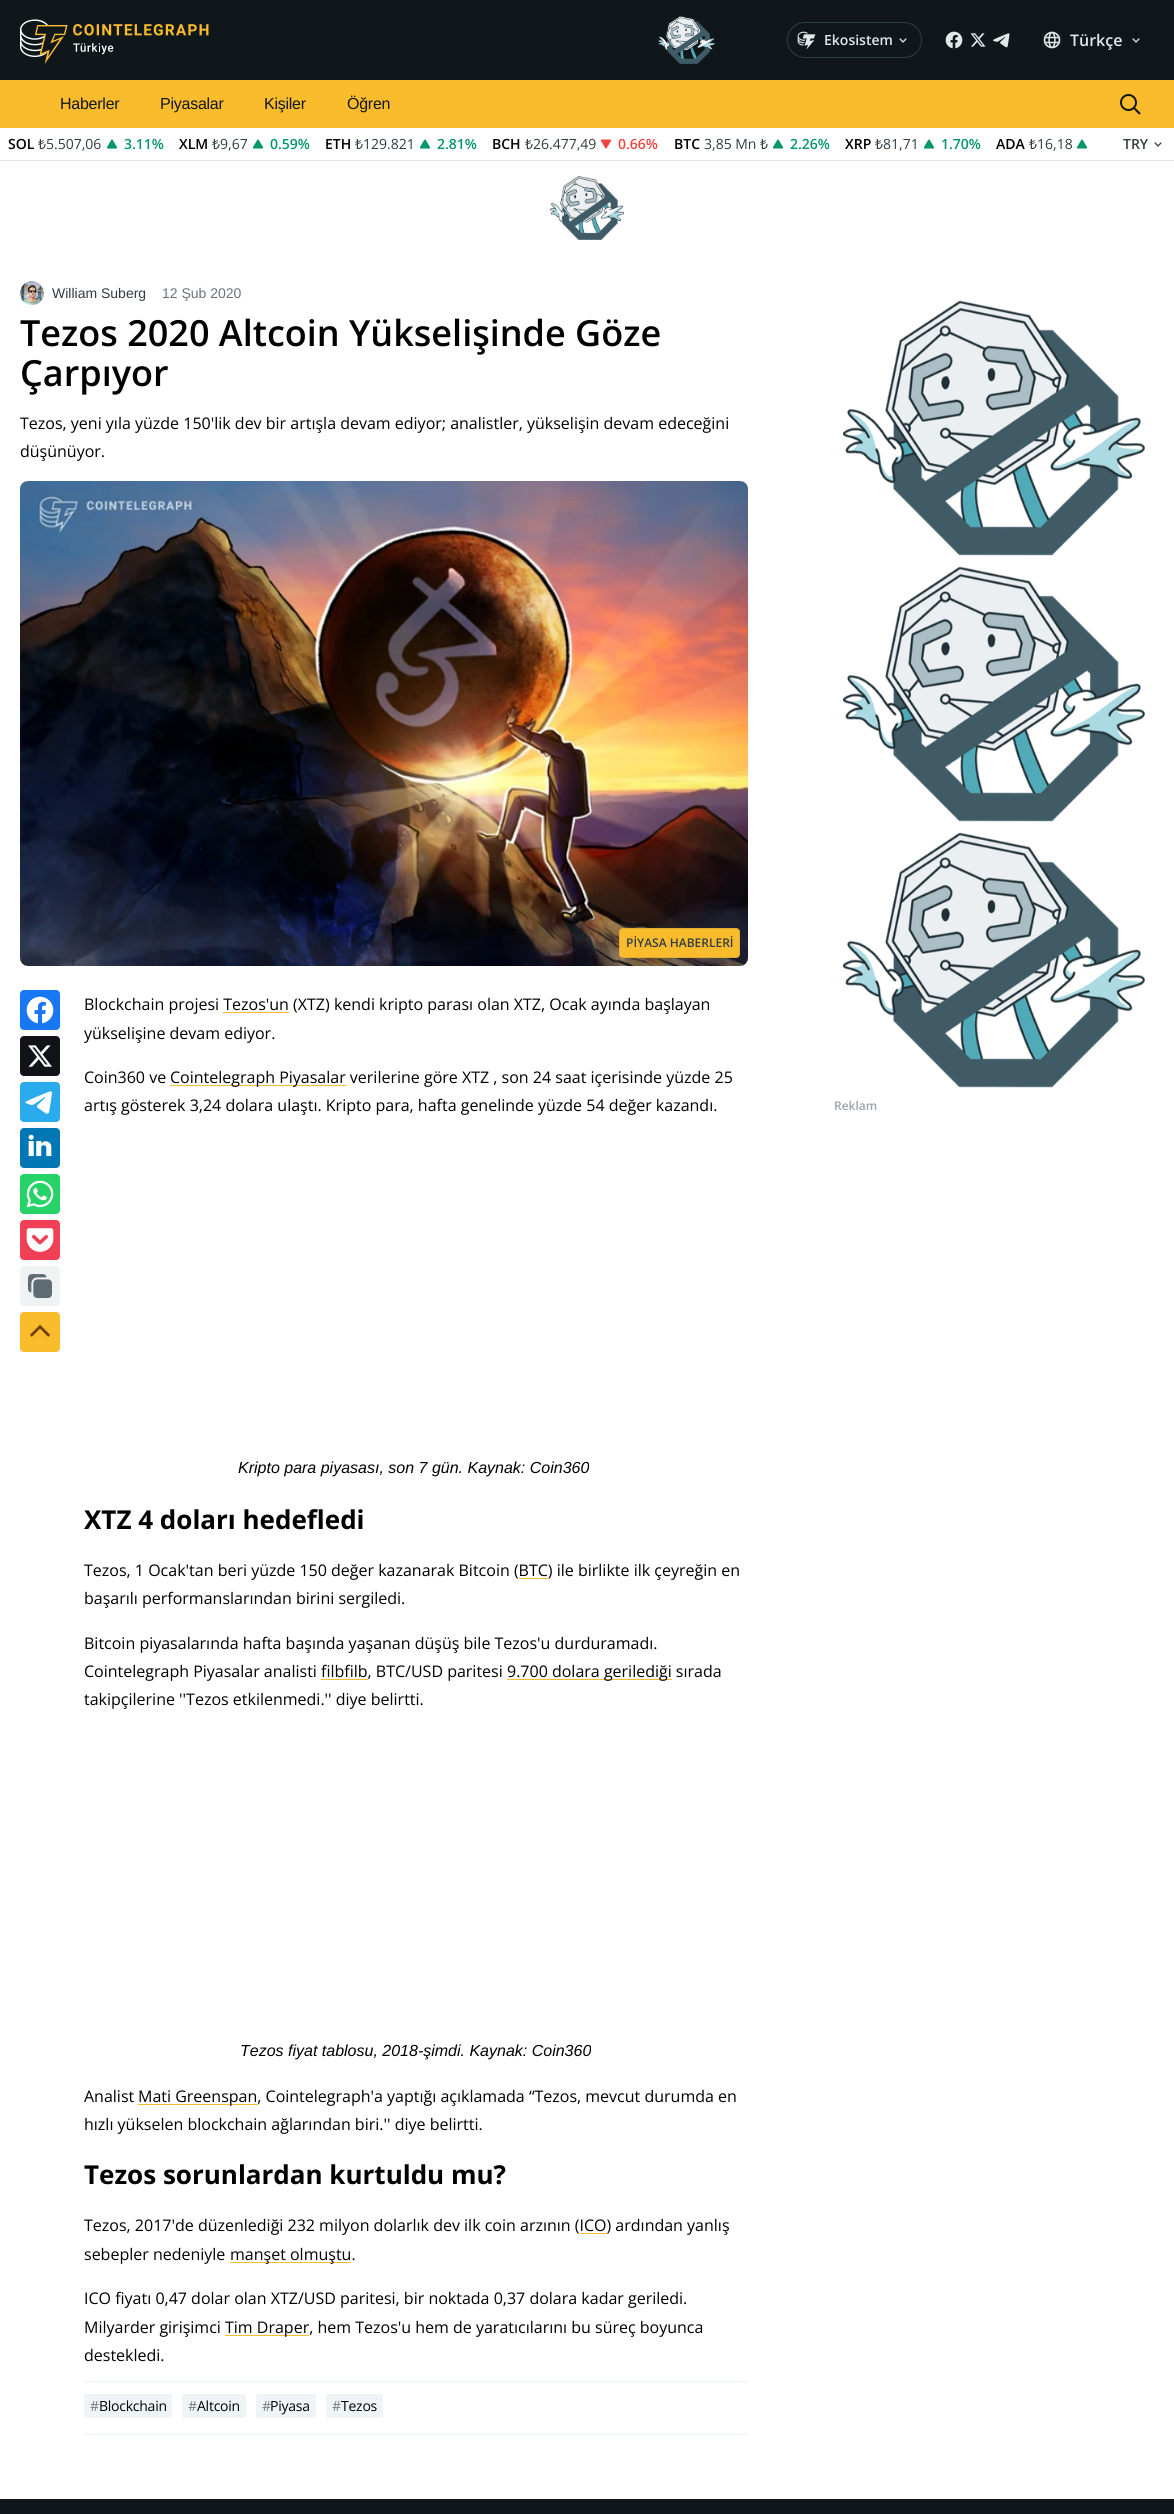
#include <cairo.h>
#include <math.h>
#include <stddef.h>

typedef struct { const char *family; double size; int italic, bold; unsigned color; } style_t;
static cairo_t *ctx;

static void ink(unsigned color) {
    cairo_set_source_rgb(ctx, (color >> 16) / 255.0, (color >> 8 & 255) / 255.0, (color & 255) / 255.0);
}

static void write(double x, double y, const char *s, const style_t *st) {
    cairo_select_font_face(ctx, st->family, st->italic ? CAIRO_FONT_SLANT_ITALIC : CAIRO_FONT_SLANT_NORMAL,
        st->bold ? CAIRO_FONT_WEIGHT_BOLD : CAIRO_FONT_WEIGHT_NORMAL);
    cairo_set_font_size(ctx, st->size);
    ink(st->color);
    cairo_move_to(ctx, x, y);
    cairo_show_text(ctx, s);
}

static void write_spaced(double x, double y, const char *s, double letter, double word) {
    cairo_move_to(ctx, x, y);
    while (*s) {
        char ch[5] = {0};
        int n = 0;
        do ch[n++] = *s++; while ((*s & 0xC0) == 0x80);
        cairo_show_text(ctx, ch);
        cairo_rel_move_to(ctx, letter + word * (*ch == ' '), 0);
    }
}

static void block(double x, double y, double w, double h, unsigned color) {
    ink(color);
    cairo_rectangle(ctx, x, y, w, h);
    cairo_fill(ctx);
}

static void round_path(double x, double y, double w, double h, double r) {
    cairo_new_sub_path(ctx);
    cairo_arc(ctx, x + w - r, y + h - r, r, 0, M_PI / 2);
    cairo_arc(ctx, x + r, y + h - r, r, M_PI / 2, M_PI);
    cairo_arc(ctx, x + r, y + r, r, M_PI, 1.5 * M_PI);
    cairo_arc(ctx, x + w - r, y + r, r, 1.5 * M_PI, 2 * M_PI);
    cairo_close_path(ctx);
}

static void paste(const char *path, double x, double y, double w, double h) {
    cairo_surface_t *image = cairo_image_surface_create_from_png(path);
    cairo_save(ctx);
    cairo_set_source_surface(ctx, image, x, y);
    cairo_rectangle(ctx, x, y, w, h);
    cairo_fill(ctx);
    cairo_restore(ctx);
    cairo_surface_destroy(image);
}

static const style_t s1 = {"Open Sans SemiBold", 14, 0, 0, 0xe1e8ea};
static const style_t s2 = {"Open Sans SemiBold", 16, 0, 0, 0xe1e8ea};
static const style_t s3 = {"Open Sans SemiBold", 14, 0, 0, 0x000000};
static const style_t s4 = {"Noto Sans", 14, 0, 0, 0x303d43};
static const style_t s5 = {"Open Sans", 14, 0, 0, 0x303d43};
static const style_t s6 = {"Open Sans SemiBold", 14, 0, 0, 0x059669};
static const style_t s7 = {"Open Sans SemiBold", 14, 0, 0, 0xef4444};
static const style_t s8 = {"Open Sans SemiBold", 14, 0, 0, 0x303d43};
static const style_t s9 = {"Liberation Sans", 14, 0, 0, 0x303d43};
static const style_t s10 = {"Liberation Sans", 14, 0, 0, 0x66747c};
static const style_t s11 = {"Open Sans SemiBold", 36, 0, 0, 0x000000};
static const style_t s12 = {"Open Sans", 16, 0, 0, 0x000000};
static const style_t s13 = {"Open Sans SemiBold", 12, 0, 0, 0x303d43};
static const style_t s14 = {"Liberation Sans", 16, 1, 0, 0x000000};
static const style_t s15 = {"Open Sans", 26, 0, 1, 0x000000};
static const style_t s16 = {"Open Sans SemiBold", 12, 0, 0, 0x98a4aa};

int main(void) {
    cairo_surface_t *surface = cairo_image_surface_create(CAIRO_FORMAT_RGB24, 1174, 2514);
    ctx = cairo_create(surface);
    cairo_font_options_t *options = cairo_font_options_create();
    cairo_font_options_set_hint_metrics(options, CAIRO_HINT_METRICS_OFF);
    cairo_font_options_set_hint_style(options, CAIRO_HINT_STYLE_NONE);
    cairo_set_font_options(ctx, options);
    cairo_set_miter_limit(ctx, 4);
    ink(0xffffff);
    cairo_paint(ctx);
    block(0, 0, 1174, 80, 0x10171b);
    paste("pic1.png", 20, 19, 189, 45);
    paste("pic2.png", 658, 16, 57, 48);
    round_path(787.5, 22.5, 134, 35, 17.5);
    ink(0x303d43);
    cairo_set_line_width(ctx, 1);
    cairo_stroke(ctx);
    paste("pic3.png", 797, 31, 19, 19);
    write(824, 45, "Ekosistem", &s1);
    paste("pic4.png", 899, 38, 8, 5);
    paste("pic5.png", 945, 31, 18, 18);
    paste("pic6.png", 970, 33, 16, 14);
    paste("pic7.png", 992, 33, 18, 15);
    paste("pic8.png", 1043, 31, 18, 18);
    write(1070, 46, "Türkçe", &s2);
    paste("pic4.png", 1132, 38, 8, 5);
    block(0, 80, 1174, 48, 0xfabc2c);
    cairo_select_font_face(ctx, "Liberation Sans", CAIRO_FONT_SLANT_NORMAL, CAIRO_FONT_WEIGHT_NORMAL);
    ink(0x10171b);
    write_spaced(60, 109, "Haberler", -0.25, 0);
    write_spaced(160, 109, "Piyasalar", -0.25, 0);
    write_spaced(264, 109, "Kişiler", -0.25, 0);
    write_spaced(347, 109, "Öğren", -0.25, 0);
    paste("pic9.png", 1120, 94, 21, 21);
    block(0, 160, 1174, 1, 0xe1e8ea);
    write(8, 149, "SOL", &s3);
    write(38, 149, "₺", &s4);
    write(46, 149, "5.507,06", &s5);
    paste("pic10.png", 106, 139, 12, 10);
    write(124, 149, "3.11%", &s6);
    write(179, 149, "XLM", &s3);
    write(212, 149, "₺", &s4);
    write(220, 149, "9,67", &s5);
    paste("pic10.png", 252, 139, 12, 10);
    write(270, 149, "0.59%", &s6);
    write(325, 149, "ETH", &s3);
    write(355, 149, "₺", &s4);
    write(363, 149, "129.821", &s5);
    paste("pic10.png", 419, 139, 12, 10);
    write(437, 149, "2.81%", &s6);
    write(492, 149, "BCH", &s3);
    write(525, 149, "₺", &s4);
    write(533, 149, "26.477,49", &s5);
    paste("pic11.png", 600, 139, 12, 10);
    write(618, 149, "0.66%", &s7);
    write(674, 149, "BTC", &s3);
    write(704, 149, "3,85 Mn", &s5);
    write(760, 149, "₺", &s4);
    paste("pic10.png", 772, 139, 12, 10);
    write(790, 149, "2.26%", &s6);
    write(845, 149, "XRP", &s3);
    write(875, 149, "₺", &s4);
    write(883, 149, "81,71", &s5);
    paste("pic10.png", 923, 139, 12, 10);
    write(941, 149, "1.70%", &s6);
    write(996, 149, "ADA", &s3);
    write(1029, 149, "₺", &s4);
    write(1037, 149, "16,18", &s5);
    paste("pic10.png", 1076, 139, 12, 10);
    write(1123, 149, "TRY", &s8);
    paste("pic12.png", 1154, 142, 8, 5);
    paste("pic13.png", 550, 176, 74, 64);
    paste("pic14.png", 20, 281, 24, 24);
    write(52, 298, "William Suberg", &s9);
    write(162, 298, "12 Şub 2020", &s10);
    write(20, 346, "Tezos 2020 Altcoin Yükselişinde Göze", &s11);
    write(20, 386, "Çarpıyor", &s11);
    write(20, 429, "Tezos, yeni yıla yüzde 150'lik dev bir artışla devam ediyor; analistler, yükselişin devam edeceğini", &s12);
    write(20, 457, "düşünüyor.", &s12);
    paste("pic15.png", 20, 481, 728, 485);
    ink(0xfabc2c);
    round_path(619, 928, 121, 30, 4);
    cairo_fill(ctx);
    round_path(619.5, 928.5, 120, 29, 3.5);
    cairo_set_source_rgba(ctx, 0.192, 0.38, 0.435, 0.15);
    cairo_stroke(ctx);
    write(626, 947, "PİYASA HABERLERİ", &s13);
    ink(0x1877f2);
    round_path(20, 990, 40, 40, 4);
    cairo_fill(ctx);
    paste("pic16.png", 26, 996, 28, 28);
    ink(0x101318);
    round_path(20, 1036, 40, 40, 4);
    cairo_fill(ctx);
    paste("pic17.png", 28, 1045, 24, 22);
    ink(0x2aabee);
    round_path(20, 1082, 40, 40, 4);
    cairo_fill(ctx);
    paste("pic18.png", 25, 1091, 27, 23);
    ink(0x0077b5);
    round_path(20, 1128, 40, 40, 4);
    cairo_fill(ctx);
    paste("pic19.png", 28, 1134, 24, 23);
    ink(0x25d366);
    round_path(20, 1174, 40, 40, 4);
    cairo_fill(ctx);
    paste("pic20.png", 26, 1180, 28, 28);
    ink(0xef4056);
    round_path(20, 1220, 40, 40, 4);
    cairo_fill(ctx);
    paste("pic21.png", 26, 1228, 28, 24);
    ink(0xf0f3f4);
    round_path(20, 1266, 40, 40, 4);
    cairo_fill(ctx);
    paste("pic22.png", 28, 1274, 24, 25);
    ink(0xfabc2c);
    round_path(20, 1312, 40, 40, 4);
    cairo_fill(ctx);
    paste("pic23.png", 30, 1324, 20, 13);
    write(84, 1010, "Blockchain projesi Tezos'un (XTZ) kendi kripto parası olan XTZ, Ocak ayında başlayan", &s12);
    block(223, 1012, 66, 1, 0xfabc2c);
    write(84, 1039, "yükselişine devam ediyor.", &s12);
    write(84, 1083, "Coin360 ve", &s12);
    block(170, 1085, 176, 1, 0xfabc2c);
    write(170, 1083, "Cointelegraph Piyasalar verilerine göre XTZ , son 24 saat içerisinde yüzde 25", &s12);
    write(84, 1111, "artış gösterek 3,24 dolara ulaştı. Kripto para, hafta genelinde yüzde 54 değer kazandı.", &s12);
    write(238, 1473, "Kripto para piyasası, son 7 gün. Kaynak: Coin360", &s14);
    write(84, 1529, "XTZ 4 doları hedefledi", &s15);
    write(84, 1576, "Tezos, 1 Ocak'tan beri yüzde 150 değer kazanarak Bitcoin (BTC) ile birlikte ilk çeyreğin en", &s12);
    block(519, 1578, 29, 1, 0xfabc2c);
    write(84, 1604, "başarılı performanslarından birini sergiledi.", &s12);
    write(84, 1649, "Bitcoin piyasalarında hafta başında yaşanan düşüş bile Tezos'u durduramadı.", &s12);
    write(84, 1677, "Cointelegraph Piyasalar analisti filbfilb, BTC/USD paritesi", &s12);
    block(507, 1679, 165, 1, 0xfabc2c);
    write(507, 1677, "9.700 dolara gerilediği sırada", &s12);
    block(321, 1679, 47, 1, 0xfabc2c);
    write(84, 1705, "takipçilerine ''Tezos etkilenmedi.'' diye belirtti.", &s12);
    write(240, 2056, "Tezos fiyat tablosu, 2018-şimdi. Kaynak: Coin360", &s14);
    write(84, 2102, "Analist", &s12);
    block(138, 2104, 120, 1, 0xfabc2c);
    write(138, 2102, "Mati Greenspan, Cointelegraph'a yaptığı açıklamada “Tezos, mevcut durumda en", &s12);
    write(84, 2130, "hızlı yükselen blockchain ağlarından biri.'' diye belirtti.", &s12);
    write(84, 2184, "Tezos sorunlardan kurtuldu mu?", &s15);
    write(84, 2231, "Tezos, 2017'de düzenlediği 232 milyon dolarlık dev ilk coin arzının (ICO) ardından yanlış", &s12);
    block(580, 2233, 27, 1, 0xfabc2c);
    write(84, 2260, "sebepler nedeniyle", &s12);
    block(230, 2262, 121, 1, 0xfabc2c);
    write(230, 2260, "manşet olmuştu.", &s12);
    write(84, 2304, "ICO fiyatı 0,47 dolar olan XTZ/USD paritesi, bir noktada 0,37 dolara kadar geriledi.", &s12);
    write(84, 2333, "Milyarder girişimci", &s12);
    block(225, 2335, 84, 1, 0xfabc2c);
    write(225, 2333, "Tim Draper, hem Tezos'u hem de yaratıcılarını bu süreç boyunca", &s12);
    write(84, 2361, "destekledi.", &s12);
    block(84, 2381, 664, 1, 0xeff5f6);
    round_path(84, 2394, 88, 24, 2);
    cairo_fill(ctx);
    cairo_set_font_size(ctx, 14);
    ink(0x787b7b);
    write_spaced(90, 2411, "#", -0.25, 0);
    ink(0x000000);
    write_spaced(99, 2411, "Blockchain", -0.25, 0);
    ink(0xeff5f6);
    round_path(182, 2394, 64, 24, 2);
    cairo_fill(ctx);
    ink(0x787b7b);
    write_spaced(188, 2411, "#", -0.25, 0);
    ink(0x000000);
    write_spaced(197, 2411, "Altcoin", -0.25, 0);
    ink(0xeff5f6);
    round_path(256, 2394, 60, 24, 2);
    cairo_fill(ctx);
    ink(0x787b7b);
    write_spaced(262, 2411, "#", -0.25, 0);
    ink(0x000000);
    write_spaced(270, 2411, "Piyasa", -0.25, 0);
    ink(0xeff5f6);
    round_path(326, 2394, 57, 24, 2);
    cairo_fill(ctx);
    ink(0x787b7b);
    write_spaced(332, 2411, "#", -0.25, 0);
    ink(0x000000);
    write_spaced(341, 2411, "Tezos", -0.25, 0);
    block(84, 2434, 664, 1, 0xeff5f6);
    paste("pic24.png", 843, 300, 302, 256);
    paste("pic24.png", 843, 566, 302, 256);
    paste("pic24.png", 843, 832, 302, 256);
    write(834, 1110, "Reklam", &s16);
    block(0, 2499, 1174, 15, 0x10171b);
    cairo_surface_write_to_png(surface, "screenshot.png");
    cairo_font_options_destroy(options);
    cairo_destroy(ctx);
    cairo_surface_destroy(surface);
    return 0;
}
